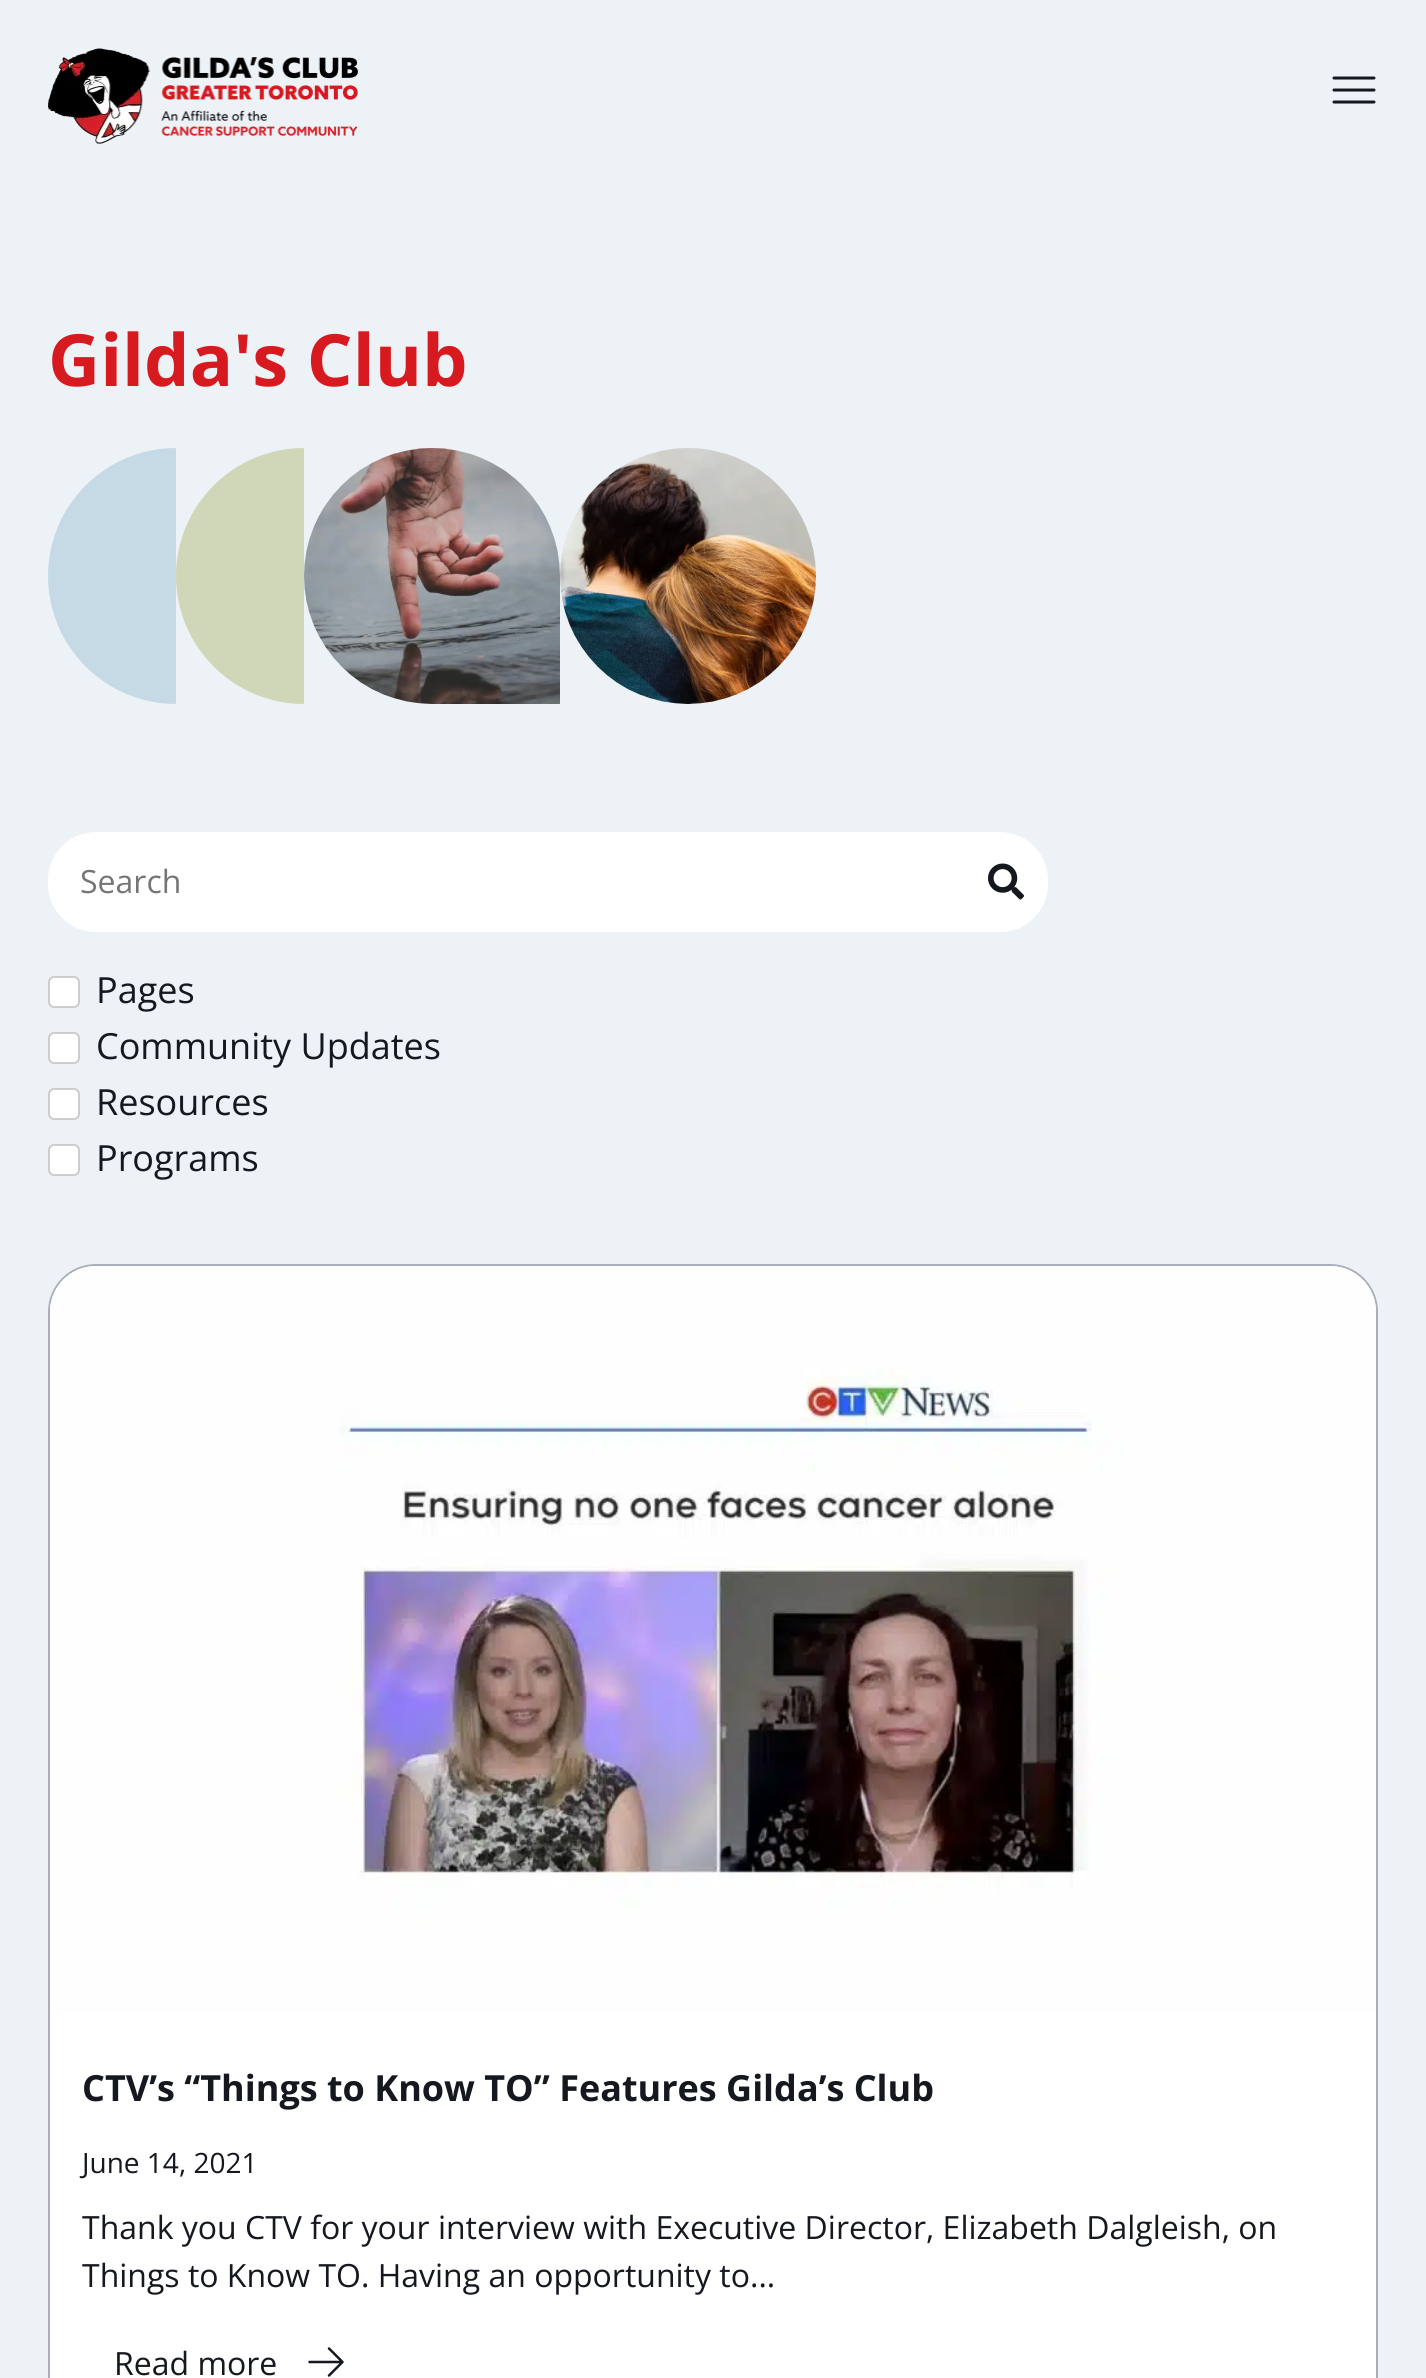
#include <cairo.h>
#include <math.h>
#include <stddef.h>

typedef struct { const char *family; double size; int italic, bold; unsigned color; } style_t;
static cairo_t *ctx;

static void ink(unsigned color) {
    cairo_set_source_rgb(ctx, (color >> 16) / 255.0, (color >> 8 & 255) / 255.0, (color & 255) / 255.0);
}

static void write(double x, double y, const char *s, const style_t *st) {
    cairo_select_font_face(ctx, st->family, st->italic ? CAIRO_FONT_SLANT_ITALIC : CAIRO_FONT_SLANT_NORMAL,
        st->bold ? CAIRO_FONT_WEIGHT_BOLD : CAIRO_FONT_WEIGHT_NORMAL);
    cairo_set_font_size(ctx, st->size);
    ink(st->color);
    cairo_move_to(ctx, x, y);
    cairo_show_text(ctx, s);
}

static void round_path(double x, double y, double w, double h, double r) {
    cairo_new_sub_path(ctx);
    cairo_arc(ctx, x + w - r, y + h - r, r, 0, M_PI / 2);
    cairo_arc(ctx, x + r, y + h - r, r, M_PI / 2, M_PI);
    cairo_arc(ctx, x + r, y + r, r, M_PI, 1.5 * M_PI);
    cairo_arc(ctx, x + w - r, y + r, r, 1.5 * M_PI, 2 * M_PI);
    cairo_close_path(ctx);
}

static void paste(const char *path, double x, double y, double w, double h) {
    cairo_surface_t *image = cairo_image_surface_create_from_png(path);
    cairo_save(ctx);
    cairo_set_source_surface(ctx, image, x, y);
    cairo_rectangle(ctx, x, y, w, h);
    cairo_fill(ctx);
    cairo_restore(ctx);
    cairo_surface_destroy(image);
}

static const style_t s1 = {"Open Sans", 72, 0, 1, 0xd71a20};
static const style_t s2 = {"Open Sans", 32, 0, 0, 0x757575};
static const style_t s3 = {"Open Sans", 36, 0, 0, 0x15181f};
static const style_t s4 = {"Open Sans", 36, 0, 1, 0x15181f};
static const style_t s5 = {"Open Sans", 28, 0, 0, 0x15181f};
static const style_t s6 = {"Open Sans", 32, 0, 0, 0x15181f};

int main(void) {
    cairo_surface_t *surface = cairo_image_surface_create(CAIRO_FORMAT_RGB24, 1426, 2378);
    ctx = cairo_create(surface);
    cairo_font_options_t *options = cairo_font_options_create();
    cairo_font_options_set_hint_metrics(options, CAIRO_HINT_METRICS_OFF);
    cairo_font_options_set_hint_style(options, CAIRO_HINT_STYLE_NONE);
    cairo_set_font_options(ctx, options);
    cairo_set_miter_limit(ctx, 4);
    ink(0xedf2f7);
    cairo_paint(ctx);
    paste("pic1.png", 48, 48, 310, 96);
    cairo_new_path(ctx);
    cairo_move_to(ctx, 1334, 78);
    cairo_line_to(ctx, 1374, 78);
    cairo_move_to(ctx, 1334, 90);
    cairo_line_to(ctx, 1374, 90);
    cairo_move_to(ctx, 1334, 102);
    cairo_line_to(ctx, 1374, 102);
    ink(0x15181f);
    cairo_set_line_width(ctx, 3);
    cairo_set_line_cap(ctx, CAIRO_LINE_CAP_ROUND);
    cairo_set_line_join(ctx, CAIRO_LINE_JOIN_ROUND);
    cairo_stroke(ctx);
    write(48, 386, "Gilda's Club", &s1);
    ink(0xc6dae5);
    cairo_new_path(ctx);
    cairo_move_to(ctx, 176, 448);
    cairo_line_to(ctx, 176, 704);
    cairo_curve_to(ctx, 105.5, 704, 48, 646.5, 48, 576);
    cairo_curve_to(ctx, 48, 505.5, 105.5, 448, 176, 448);
    cairo_close_path(ctx);
    cairo_fill(ctx);
    ink(0xd0d7b8);
    cairo_new_path(ctx);
    cairo_move_to(ctx, 304, 448);
    cairo_line_to(ctx, 304, 704);
    cairo_curve_to(ctx, 233.5, 704, 176, 646.5, 176, 576);
    cairo_curve_to(ctx, 176, 505.5, 233.5, 448, 304, 448);
    cairo_close_path(ctx);
    cairo_fill(ctx);
    paste("pic2.png", 304, 448, 256, 256);
    paste("pic3.png", 560, 448, 256, 256);
    ink(0xffffff);
    round_path(48, 832, 1000, 100, 48);
    cairo_fill(ctx);
    write(80, 893, "Search", &s2);
    paste("pic4.png", 988, 863, 36, 37);
    ink(0xffffff);
    round_path(49, 977, 30, 30, 5);
    cairo_fill_preserve(ctx);
    ink(0xcccccc);
    cairo_set_line_width(ctx, 2);
    cairo_set_line_cap(ctx, CAIRO_LINE_CAP_BUTT);
    cairo_set_line_join(ctx, CAIRO_LINE_JOIN_MITER);
    cairo_stroke(ctx);
    write(96, 1003, "Pages", &s3);
    ink(0xffffff);
    round_path(49, 1033, 30, 30, 5);
    cairo_fill_preserve(ctx);
    ink(0xcccccc);
    cairo_stroke(ctx);
    write(96, 1059, "Community Updates", &s3);
    ink(0xffffff);
    round_path(49, 1089, 30, 30, 5);
    cairo_fill_preserve(ctx);
    ink(0xcccccc);
    cairo_stroke(ctx);
    write(96, 1115, "Resources", &s3);
    ink(0xffffff);
    round_path(49, 1145, 30, 30, 5);
    cairo_fill_preserve(ctx);
    ink(0xcccccc);
    cairo_stroke(ctx);
    write(96, 1171, "Programs", &s3);
    ink(0xffffff);
    round_path(49, 1265, 1328, 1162, 47);
    cairo_fill_preserve(ctx);
    ink(0xa9aeb8);
    cairo_stroke(ctx);
    ink(0xedf2f7);
    cairo_new_path(ctx);
    cairo_move_to(ctx, 96, 1266);
    cairo_line_to(ctx, 1330, 1266);
    cairo_curve_to(ctx, 1355.5, 1266, 1376, 1286.5, 1376, 1312);
    cairo_line_to(ctx, 1376, 2012);
    cairo_line_to(ctx, 50, 2012);
    cairo_line_to(ctx, 50, 1312);
    cairo_curve_to(ctx, 50, 1286.5, 70.5, 1266, 96, 1266);
    cairo_close_path(ctx);
    cairo_fill(ctx);
    paste("pic5.png", 50, 1266, 1326, 746);
    write(82, 2101, "CTV’s “Things to Know TO” Features Gilda’s Club", &s4);
    write(82, 2173, "June 14, 2021", &s5);
    write(82, 2239, "Thank you CTV for your interview with Executive Director, Elizabeth Dalgleish, on", &s6);
    write(82, 2287, "Things to Know TO. Having an opportunity to...", &s6);
    write(114, 2375, "Read more", &s6);
    cairo_new_path(ctx);
    cairo_move_to(ctx, 309.5, 2362);
    cairo_line_to(ctx, 342.5, 2362);
    cairo_move_to(ctx, 329, 2348.5);
    cairo_line_to(ctx, 342.5, 2362);
    cairo_line_to(ctx, 329, 2375.5);
    cairo_set_line_width(ctx, 2.5);
    cairo_set_line_cap(ctx, CAIRO_LINE_CAP_ROUND);
    cairo_set_line_join(ctx, CAIRO_LINE_JOIN_ROUND);
    cairo_stroke(ctx);
    cairo_surface_write_to_png(surface, "screenshot.png");
    cairo_font_options_destroy(options);
    cairo_destroy(ctx);
    cairo_surface_destroy(surface);
    return 0;
}
